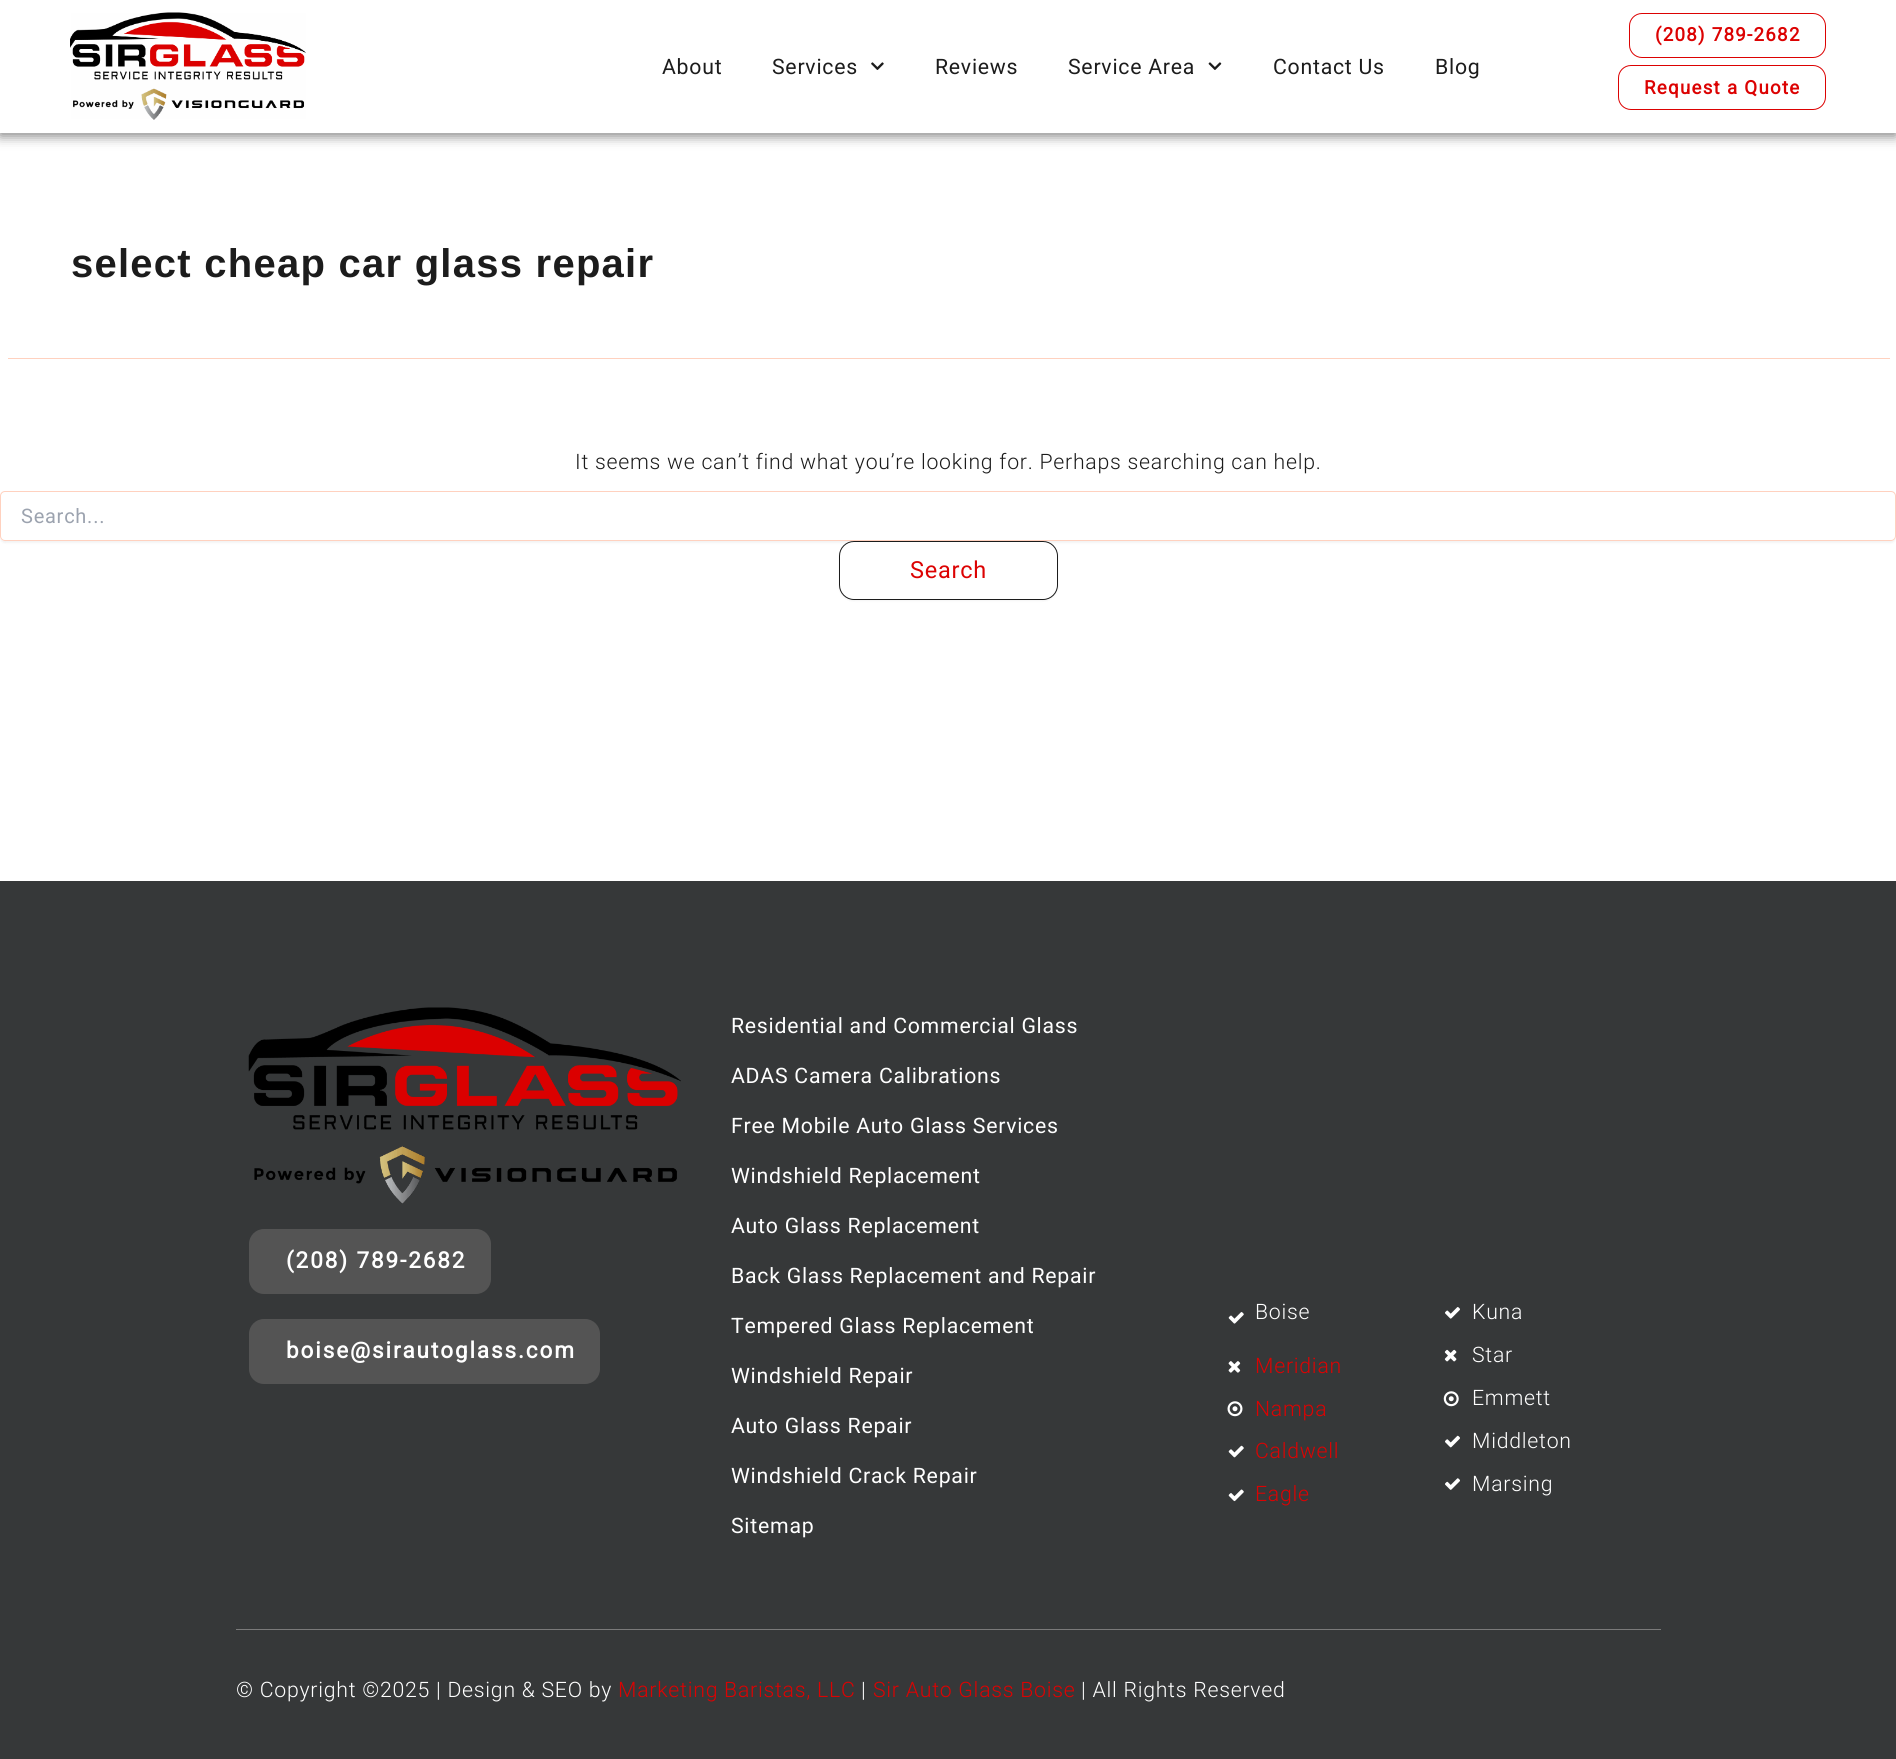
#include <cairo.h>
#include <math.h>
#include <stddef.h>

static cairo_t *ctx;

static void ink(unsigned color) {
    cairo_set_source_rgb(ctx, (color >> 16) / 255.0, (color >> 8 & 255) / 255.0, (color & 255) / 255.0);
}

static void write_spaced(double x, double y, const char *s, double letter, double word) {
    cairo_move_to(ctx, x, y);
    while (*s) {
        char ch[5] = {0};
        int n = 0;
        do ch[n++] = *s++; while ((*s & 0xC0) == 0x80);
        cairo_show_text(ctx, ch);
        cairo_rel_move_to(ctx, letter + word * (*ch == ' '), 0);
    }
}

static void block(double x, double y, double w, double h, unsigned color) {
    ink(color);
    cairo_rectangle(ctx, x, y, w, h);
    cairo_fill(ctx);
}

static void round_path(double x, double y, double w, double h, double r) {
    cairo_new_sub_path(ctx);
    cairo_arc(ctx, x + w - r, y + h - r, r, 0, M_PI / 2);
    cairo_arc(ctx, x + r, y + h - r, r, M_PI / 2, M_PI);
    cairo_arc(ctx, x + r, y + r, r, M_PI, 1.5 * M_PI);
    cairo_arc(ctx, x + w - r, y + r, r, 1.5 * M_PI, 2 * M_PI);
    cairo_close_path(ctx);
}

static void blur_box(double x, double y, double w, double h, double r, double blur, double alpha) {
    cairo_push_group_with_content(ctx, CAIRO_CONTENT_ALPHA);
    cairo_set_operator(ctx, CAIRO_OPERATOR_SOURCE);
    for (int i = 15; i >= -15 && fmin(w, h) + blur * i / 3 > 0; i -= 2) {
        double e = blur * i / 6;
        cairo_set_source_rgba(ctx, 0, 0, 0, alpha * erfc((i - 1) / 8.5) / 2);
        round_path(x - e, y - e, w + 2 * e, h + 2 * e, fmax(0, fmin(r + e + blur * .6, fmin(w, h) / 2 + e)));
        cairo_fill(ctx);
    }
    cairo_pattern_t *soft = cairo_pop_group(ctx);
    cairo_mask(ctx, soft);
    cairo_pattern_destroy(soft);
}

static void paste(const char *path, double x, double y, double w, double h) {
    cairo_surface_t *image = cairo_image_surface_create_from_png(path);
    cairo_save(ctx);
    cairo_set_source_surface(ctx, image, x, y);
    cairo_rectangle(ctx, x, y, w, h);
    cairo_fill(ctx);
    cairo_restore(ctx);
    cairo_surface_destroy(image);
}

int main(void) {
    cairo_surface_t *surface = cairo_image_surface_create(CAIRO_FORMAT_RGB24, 1896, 1759);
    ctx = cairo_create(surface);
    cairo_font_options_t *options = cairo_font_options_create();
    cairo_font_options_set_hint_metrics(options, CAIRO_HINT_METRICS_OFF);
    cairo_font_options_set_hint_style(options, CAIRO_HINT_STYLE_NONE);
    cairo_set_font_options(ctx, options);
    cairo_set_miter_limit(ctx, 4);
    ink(0xffffff);
    cairo_paint(ctx);
    ink(0x000000);
    blur_box(0, 4, 1896, 132, 0, 6, 0.5);
    block(0, 0, 1896, 133, 0xffffff);
    paste("pic1.png", 70, 12, 236, 108);
    cairo_select_font_face(ctx, "Roboto", CAIRO_FONT_SLANT_NORMAL, CAIRO_FONT_WEIGHT_NORMAL);
    cairo_set_font_size(ctx, 21.25);
    ink(0x1c1c1c);
    write_spaced(662, 74, "About", 0.75, 0);
    write_spaced(772, 74, "Services", 0.75, 0);
    paste("pic2.png", 871, 62, 13, 8);
    write_spaced(935, 74, "Reviews", 0.75, 0);
    write_spaced(1068, 74, "Service Area", 0.75, 0);
    paste("pic3.png", 1208, 62, 14, 8);
    write_spaced(1273, 74, "Contact Us", 0.75, 0);
    write_spaced(1435, 74, "Blog", 0.75, 0);
    round_path(1629.5, 13.5, 196, 44, 12.5);
    ink(0xdc0202);
    cairo_set_line_width(ctx, 1);
    cairo_stroke(ctx);
    cairo_select_font_face(ctx, "Roboto", CAIRO_FONT_SLANT_NORMAL, CAIRO_FONT_WEIGHT_BOLD);
    cairo_set_font_size(ctx, 18.75);
    write_spaced(1655, 41, "(208) 789-2682", 1.25, 0);
    round_path(1618.5, 65.5, 207, 44, 12.5);
    cairo_stroke(ctx);
    write_spaced(1644, 94, "Request a Quote", 1.25, 0);
    block(8, 358, 1882, 1, 0xffd1bf);
    cairo_select_font_face(ctx, "Liberation Sans", CAIRO_FONT_SLANT_NORMAL, CAIRO_FONT_WEIGHT_BOLD);
    cairo_set_font_size(ctx, 40);
    ink(0x1c1c1c);
    write_spaced(71, 277, "select cheap car glass repair", 1.25, 0);
    cairo_select_font_face(ctx, "Roboto Light", CAIRO_FONT_SLANT_NORMAL, CAIRO_FONT_WEIGHT_NORMAL);
    cairo_set_font_size(ctx, 21.25);
    write_spaced(575, 469, "It seems we can’t find what you’re looking for. Perhaps searching can help.", 0.75, 0);
    cairo_save(ctx);
    cairo_set_fill_rule(ctx, CAIRO_FILL_RULE_EVEN_ODD);
    cairo_new_path(ctx);
    cairo_move_to(ctx, 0, 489);
    cairo_line_to(ctx, 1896, 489);
    cairo_line_to(ctx, 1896, 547);
    cairo_line_to(ctx, 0, 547);
    cairo_close_path(ctx);
    cairo_move_to(ctx, 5, 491);
    cairo_line_to(ctx, 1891, 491);
    cairo_curve_to(ctx, 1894, 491, 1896, 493, 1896, 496);
    cairo_line_to(ctx, 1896, 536);
    cairo_curve_to(ctx, 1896, 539, 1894, 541, 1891, 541);
    cairo_line_to(ctx, 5, 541);
    cairo_curve_to(ctx, 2, 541, 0, 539, 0, 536);
    cairo_line_to(ctx, 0, 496);
    cairo_curve_to(ctx, 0, 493, 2, 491, 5, 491);
    cairo_close_path(ctx);
    cairo_clip(ctx);
    ink(0x000000);
    blur_box(0, 493, 1896, 50, 5, 1, 0.05);
    cairo_restore(ctx);
    round_path(0.5, 491.5, 1895, 49, 4.5);
    ink(0xffd1bf);
    cairo_stroke(ctx);
    cairo_select_font_face(ctx, "Roboto", CAIRO_FONT_SLANT_NORMAL, CAIRO_FONT_WEIGHT_NORMAL);
    cairo_set_font_size(ctx, 20);
    ink(0x9ca3af);
    write_spaced(21, 523, "Search...", 0.75, 0);
    ink(0x000000);
    blur_box(839, 543, 219, 58, 15, 1, 0.05);
    ink(0xffffff);
    round_path(839.5, 541.5, 218, 58, 14.5);
    cairo_fill_preserve(ctx);
    ink(0x1c1c1c);
    cairo_stroke(ctx);
    cairo_set_font_size(ctx, 23.5);
    ink(0xdc0202);
    write_spaced(910, 578, "Search", 0.75, 0);
    block(0, 881, 1896, 878, 0x363839);
    paste("pic4.png", 248, 1007, 433, 197);
    ink(0x545454);
    round_path(249, 1229, 242, 65, 15);
    cairo_fill(ctx);
    cairo_select_font_face(ctx, "Roboto", CAIRO_FONT_SLANT_NORMAL, CAIRO_FONT_WEIGHT_BOLD);
    cairo_set_font_size(ctx, 22.5);
    ink(0xffffff);
    write_spaced(286, 1268, "(208) 789-2682", 1.9, 0);
    ink(0x545454);
    round_path(249, 1319, 351, 65, 15);
    cairo_fill(ctx);
    ink(0xffffff);
    write_spaced(286, 1358, "boise@sirautoglass.com", 1.9, 0);
    cairo_select_font_face(ctx, "Roboto", CAIRO_FONT_SLANT_NORMAL, CAIRO_FONT_WEIGHT_NORMAL);
    cairo_set_font_size(ctx, 21.25);
    write_spaced(731, 1033, "Residential and Commercial Glass", 0.75, 0);
    write_spaced(731, 1083, "ADAS Camera Calibrations", 0.75, 0);
    write_spaced(731, 1133, "Free Mobile Auto Glass Services", 0.75, 0);
    write_spaced(731, 1183, "Windshield Replacement", 0.75, 0);
    write_spaced(731, 1233, "Auto Glass Replacement", 0.75, 0);
    write_spaced(731, 1283, "Back Glass Replacement and Repair", 0.75, 0);
    write_spaced(731, 1333, "Tempered Glass Replacement", 0.75, 0);
    write_spaced(731, 1383, "Windshield Repair", 0.75, 0);
    write_spaced(731, 1433, "Auto Glass Repair", 0.75, 0);
    write_spaced(731, 1483, "Windshield Crack Repair", 0.75, 0);
    write_spaced(731, 1533, "Sitemap", 0.75, 0);
    paste("pic5.png", 1228, 1312, 16, 12);
    cairo_select_font_face(ctx, "Roboto Light", CAIRO_FONT_SLANT_NORMAL, CAIRO_FONT_WEIGHT_NORMAL);
    write_spaced(1255, 1319, "Boise", 0.75, 0);
    paste("pic6.png", 1228, 1361, 13, 12);
    ink(0xdc0202);
    write_spaced(1255, 1373, "Meridian", 0.75, 0);
    paste("pic7.png", 1227, 1401, 16, 16);
    write_spaced(1255, 1416, "Nampa", 0.75, 0);
    paste("pic8.png", 1228, 1445, 16, 13);
    write_spaced(1255, 1458, "Caldwell", 0.75, 0);
    paste("pic9.png", 1228, 1489, 16, 13);
    write_spaced(1255, 1501, "Eagle", 0.75, 0);
    paste("pic10.png", 1445, 1307, 15, 12);
    ink(0xffffff);
    write_spaced(1472, 1319, "Kuna", 0.75, 0);
    paste("pic11.png", 1444, 1349, 13, 13);
    write_spaced(1472, 1362, "Star", 0.75, 0);
    paste("pic12.png", 1443, 1391, 16, 16);
    write_spaced(1472, 1405, "Emmett", 0.75, 0);
    paste("pic13.png", 1445, 1435, 15, 13);
    write_spaced(1472, 1448, "Middleton", 0.75, 0);
    paste("pic14.png", 1445, 1478, 15, 12);
    write_spaced(1472, 1491, "Marsing", 0.75, 0);
    block(236, 1629, 1425, 1, 0x7a7a7a);
    ink(0xffffff);
    write_spaced(236, 1697, "© Copyright ©2025 | Design & SEO by", 0.75, 0);
    ink(0xdc0202);
    write_spaced(618, 1697, "Marketing Baristas, LLC", 0.75, 0);
    ink(0xffffff);
    write_spaced(861, 1697, "|", 0.75, 0);
    ink(0xdc0202);
    write_spaced(873, 1697, "Sir Auto Glass Boise", 0.75, 0);
    ink(0xffffff);
    write_spaced(1081, 1697, "| All Rights Reserved", 0.75, 0);
    cairo_surface_write_to_png(surface, "screenshot.png");
    cairo_font_options_destroy(options);
    cairo_destroy(ctx);
    cairo_surface_destroy(surface);
    return 0;
}
